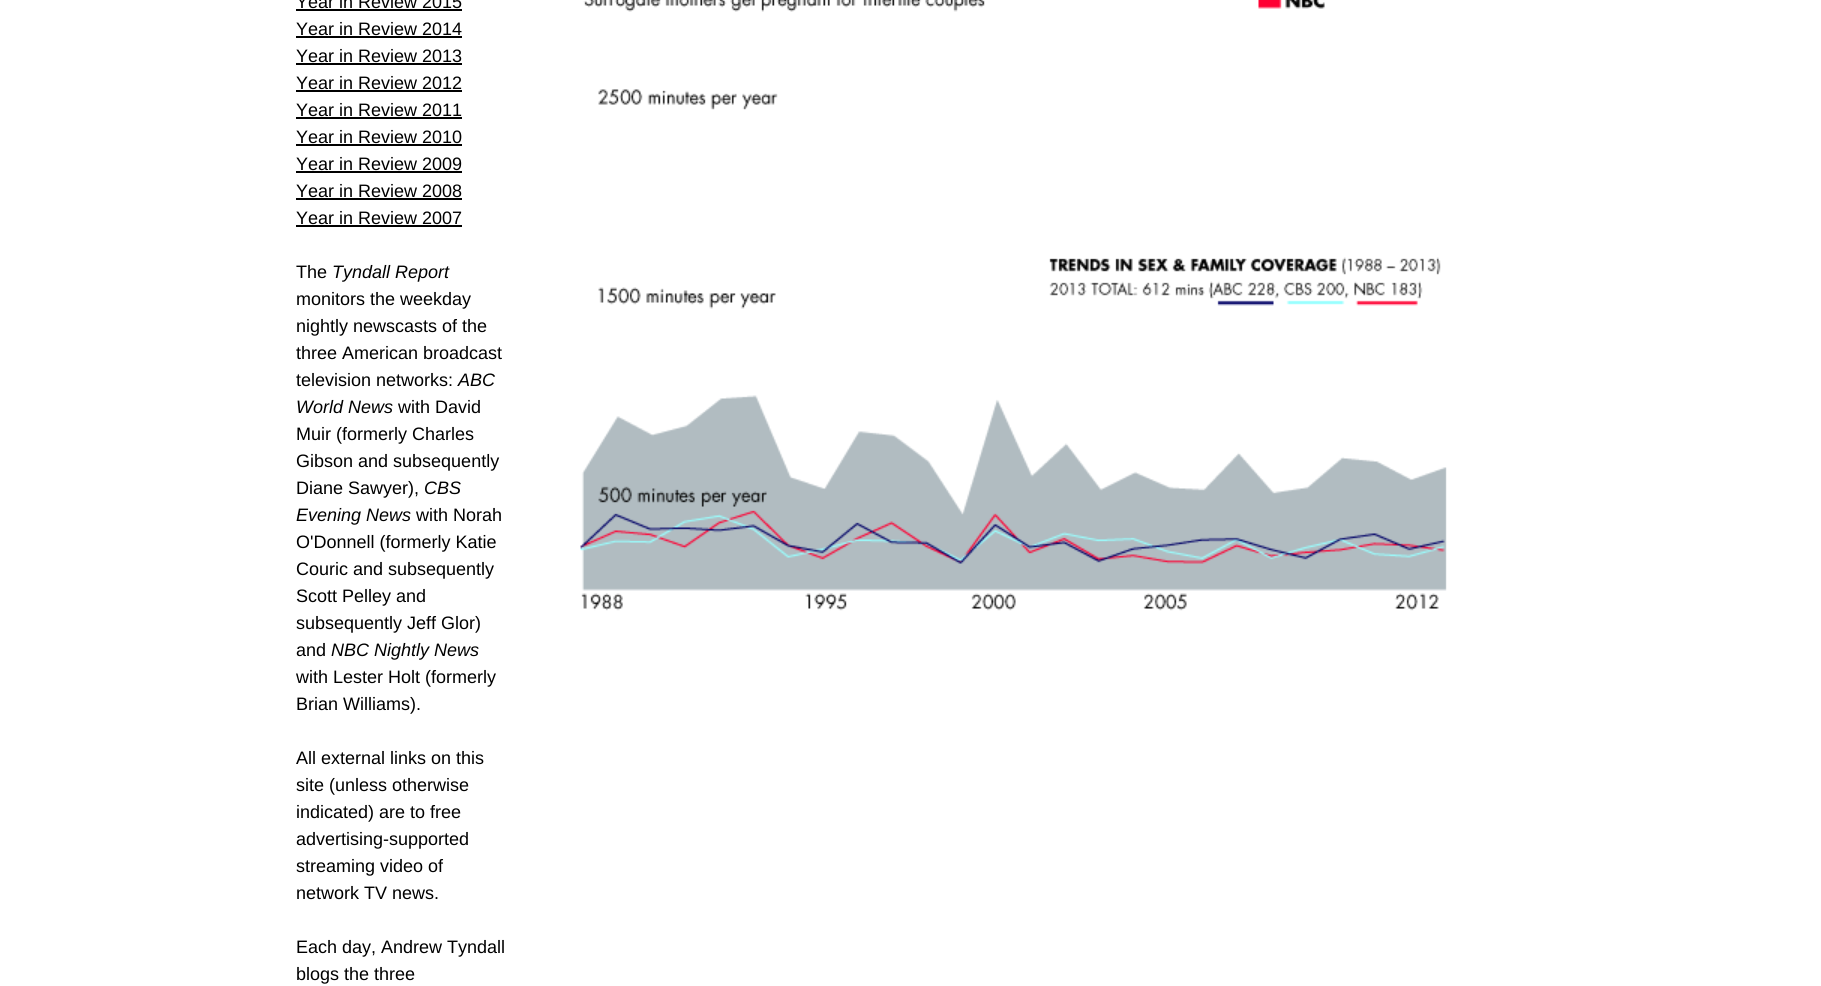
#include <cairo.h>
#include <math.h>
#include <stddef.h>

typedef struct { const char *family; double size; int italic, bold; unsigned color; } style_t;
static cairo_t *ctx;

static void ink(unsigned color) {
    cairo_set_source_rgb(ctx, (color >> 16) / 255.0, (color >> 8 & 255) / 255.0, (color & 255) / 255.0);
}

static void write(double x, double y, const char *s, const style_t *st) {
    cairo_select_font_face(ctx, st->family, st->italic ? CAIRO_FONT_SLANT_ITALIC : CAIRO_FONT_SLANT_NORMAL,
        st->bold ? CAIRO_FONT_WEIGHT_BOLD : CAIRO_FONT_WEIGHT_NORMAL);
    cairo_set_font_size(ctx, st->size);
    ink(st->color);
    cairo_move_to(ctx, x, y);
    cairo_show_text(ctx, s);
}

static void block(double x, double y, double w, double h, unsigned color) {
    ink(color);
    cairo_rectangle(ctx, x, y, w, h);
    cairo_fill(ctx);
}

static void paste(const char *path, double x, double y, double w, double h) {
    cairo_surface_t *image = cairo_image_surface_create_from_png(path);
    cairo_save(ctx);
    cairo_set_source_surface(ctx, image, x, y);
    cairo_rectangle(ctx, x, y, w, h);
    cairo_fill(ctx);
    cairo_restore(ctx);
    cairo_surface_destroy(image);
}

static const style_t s1 = {"Liberation Sans", 18, 0, 0, 0x000000};
static const style_t s2 = {"Liberation Sans", 18, 1, 0, 0x000000};

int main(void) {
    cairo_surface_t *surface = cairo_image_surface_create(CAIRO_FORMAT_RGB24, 1821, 986);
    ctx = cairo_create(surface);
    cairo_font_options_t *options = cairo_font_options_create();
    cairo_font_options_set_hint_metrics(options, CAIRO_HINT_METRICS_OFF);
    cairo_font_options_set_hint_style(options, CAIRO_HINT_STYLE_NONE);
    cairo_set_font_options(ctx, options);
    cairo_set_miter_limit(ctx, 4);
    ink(0xffffff);
    cairo_paint(ctx);
    write(296, 8, "Year in Review 2015", &s1);
    block(296, 9, 166, 2, 0x000000);
    write(296, 35, "Year in Review 2014", &s1);
    block(296, 36, 166, 2, 0x000000);
    write(296, 62, "Year in Review 2013", &s1);
    block(296, 63, 166, 2, 0x000000);
    write(296, 89, "Year in Review 2012", &s1);
    block(296, 90, 166, 2, 0x000000);
    write(296, 116, "Year in Review 2011", &s1);
    block(296, 117, 166, 2, 0x000000);
    write(296, 143, "Year in Review 2010", &s1);
    block(296, 144, 166, 2, 0x000000);
    write(296, 170, "Year in Review 2009", &s1);
    block(296, 171, 166, 2, 0x000000);
    write(296, 197, "Year in Review 2008", &s1);
    block(296, 198, 166, 2, 0x000000);
    write(296, 224, "Year in Review 2007", &s1);
    block(296, 225, 166, 2, 0x000000);
    write(296, 278, "The", &s1);
    write(332, 278, "Tyndall Report", &s2);
    write(296, 305, "monitors the weekday", &s1);
    write(296, 332, "nightly newscasts of the", &s1);
    write(296, 359, "three American broadcast", &s1);
    write(296, 386, "television networks:", &s1);
    write(458, 386, "ABC", &s2);
    write(296, 413, "World News", &s2);
    write(398, 413, "with David", &s1);
    write(296, 440, "Muir (formerly Charles", &s1);
    write(296, 467, "Gibson and subsequently", &s1);
    write(296, 494, "Diane Sawyer),", &s1);
    write(424, 494, "CBS", &s2);
    write(296, 521, "Evening News", &s2);
    write(416, 521, "with Norah", &s1);
    write(296, 548, "O'Donnell (formerly Katie", &s1);
    write(296, 575, "Couric and subsequently", &s1);
    write(296, 602, "Scott Pelley and", &s1);
    write(296, 629, "subsequently Jeff Glor)", &s1);
    write(296, 656, "and", &s1);
    write(331, 656, "NBC Nightly News", &s2);
    write(296, 683, "with Lester Holt (formerly", &s1);
    write(296, 710, "Brian Williams).", &s1);
    write(296, 764, "All external links on this", &s1);
    write(296, 791, "site (unless otherwise", &s1);
    write(296, 818, "indicated) are to free", &s1);
    write(296, 845, "advertising-supported", &s1);
    write(296, 872, "streaming video of", &s1);
    write(296, 899, "network TV news.", &s1);
    write(296, 953, "Each day, Andrew Tyndall", &s1);
    write(296, 980, "blogs the three", &s1);
    paste("pic1.png", 580, 0, 867, 611);
    cairo_surface_write_to_png(surface, "screenshot.png");
    cairo_font_options_destroy(options);
    cairo_destroy(ctx);
    cairo_surface_destroy(surface);
    return 0;
}
